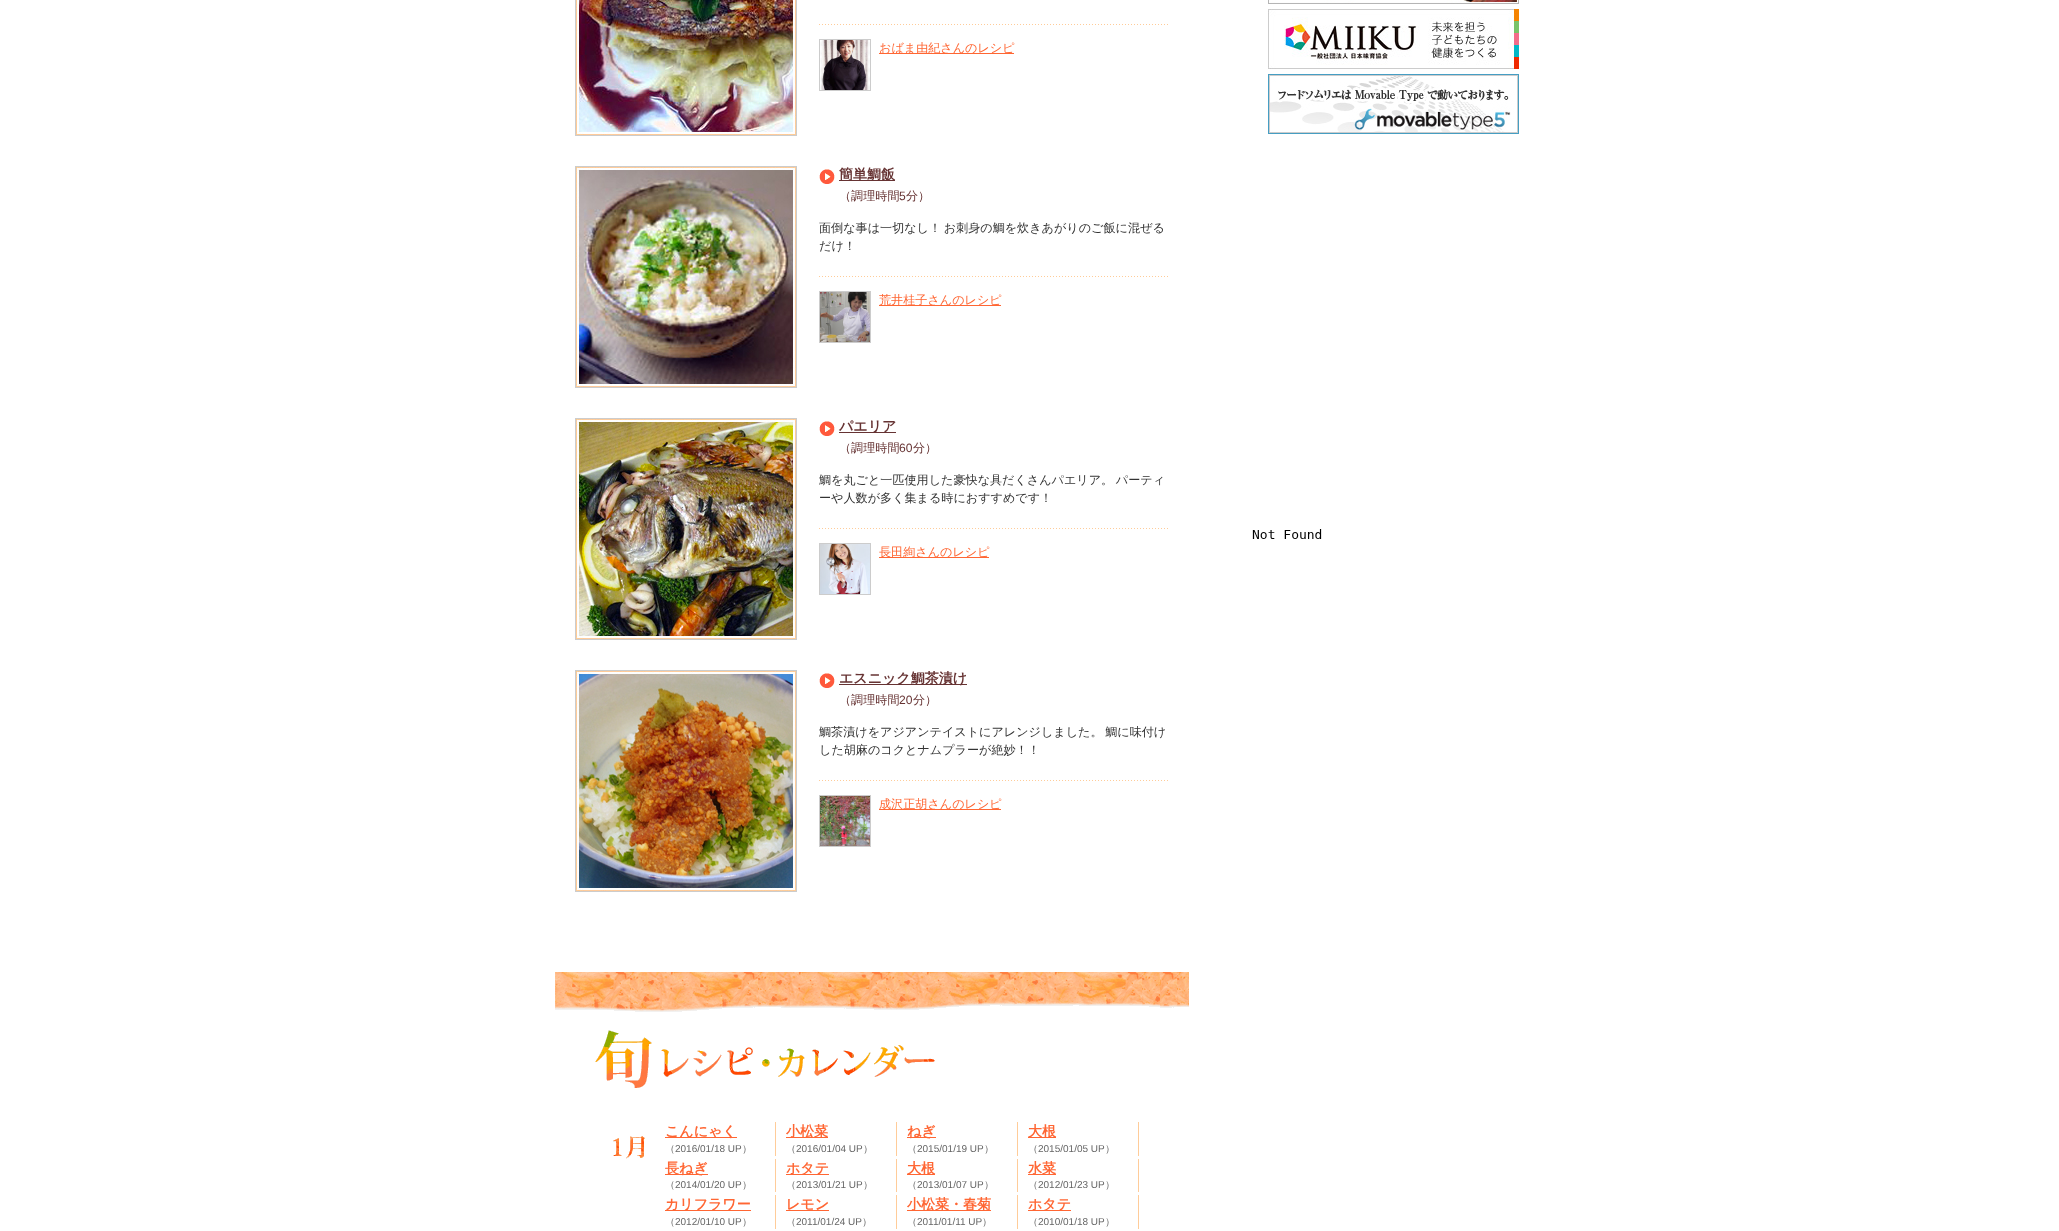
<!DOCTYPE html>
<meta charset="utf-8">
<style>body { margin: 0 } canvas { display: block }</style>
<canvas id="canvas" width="2059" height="1231"></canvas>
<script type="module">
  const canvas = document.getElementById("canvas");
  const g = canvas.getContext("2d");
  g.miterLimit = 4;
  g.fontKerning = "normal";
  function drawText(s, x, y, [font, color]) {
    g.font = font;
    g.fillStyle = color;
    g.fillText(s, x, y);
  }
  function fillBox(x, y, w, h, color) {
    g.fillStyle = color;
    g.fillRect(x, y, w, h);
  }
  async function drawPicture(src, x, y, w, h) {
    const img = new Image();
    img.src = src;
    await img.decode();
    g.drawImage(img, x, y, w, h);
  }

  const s1 = ["500 12.1px WenQuanYi Zen Hei", "#FF6633"];
  const s2 = ["bold 14px WenQuanYi Zen Hei", "#663333"];
  const s3 = ["500 12.1px WenQuanYi Zen Hei", "#663333"];
  const s4 = ["12.1px Liberation Sans", "#663333"];
  const s5 = ["500 12.1px WenQuanYi Zen Hei", "#333333"];
  const s6 = ["bold 14px WenQuanYi Zen Hei", "#FF6633"];
  const s7 = ["500 10px WenQuanYi Zen Hei", "#666666"];
  const s8 = ["10px Liberation Sans", "#666666"];

  fillBox(0, 0, 2059, 1231, "#FFFFFF");
  g.strokeStyle = "#CCCCCC";
  g.strokeRect(575.5, -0.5, 221, 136);
  await drawPicture("pic2.png", 579, 0, 214, 132);
  await drawPicture("pic1.png", 576, 0, 220, 135);
  await drawPicture("pic3.png", 819, 24, 349, 1);
  g.strokeRect(819.5, 39.5, 51, 51);
  await drawPicture("pic4.png", 820, 40, 50, 50);
  fillBox(879, 53, 135, 1, "#FF6633");
  drawText("おばま由紀さんのレシピ", 879, 52, s1);
  g.strokeRect(575.5, 166.5, 221, 221);
  await drawPicture("pic6.png", 579, 170, 214, 214);
  await drawPicture("pic5.png", 576, 167, 220, 220);
  await drawPicture("pic7.png", 819, 169, 16, 15);
  fillBox(839, 180, 56, 1, "#663333");
  drawText("簡単鯛飯", 839, 179, s2);
  drawText("（調理時間", 839, 200, s3);
  drawText("5", 899, 200, s4);
  drawText("分）", 906, 200, s3);
  g.wordSpacing = "-1px";
  drawText("面倒な事は一切なし！ お刺身の鯛を炊きあがりのご飯に混ぜる", 819, 232, s5);
  g.wordSpacing = "0px";
  drawText("だけ！", 819, 250, s5);
  await drawPicture("pic3.png", 819, 276, 349, 1);
  g.strokeRect(819.5, 291.5, 51, 51);
  await drawPicture("pic8.png", 820, 292, 50, 50);
  fillBox(879, 305, 122, 1, "#FF6633");
  drawText("荒井桂子さんのレシピ", 879, 304, s1);
  g.strokeRect(575.5, 418.5, 221, 221);
  await drawPicture("pic10.png", 579, 422, 214, 214);
  await drawPicture("pic9.png", 576, 419, 220, 220);
  await drawPicture("pic7.png", 819, 421, 16, 15);
  fillBox(839, 432, 57, 1, "#663333");
  drawText("パエリア", 839, 431, s2);
  drawText("（調理時間", 839, 452, s3);
  drawText("60", 899, 452, s4);
  drawText("分）", 913, 452, s3);
  g.wordSpacing = "-1px";
  drawText("鯛を丸ごと一匹使用した豪快な具だくさんパエリア。 パーティ", 819, 484, s5);
  g.wordSpacing = "0px";
  drawText("ーや人数が多く集まる時におすすめです！", 819, 502, s5);
  await drawPicture("pic3.png", 819, 528, 349, 1);
  g.strokeRect(819.5, 543.5, 51, 51);
  await drawPicture("pic11.png", 820, 544, 50, 50);
  fillBox(879, 557, 110, 1, "#FF6633");
  drawText("長田絢さんのレシピ", 879, 556, s1);
  g.strokeRect(575.5, 670.5, 221, 221);
  await drawPicture("pic13.png", 579, 674, 214, 214);
  await drawPicture("pic12.png", 576, 671, 220, 220);
  await drawPicture("pic7.png", 819, 673, 16, 15);
  fillBox(839, 684, 128, 1, "#663333");
  drawText("エスニック鯛茶漬け", 839, 683, s2);
  drawText("（調理時間", 839, 704, s3);
  drawText("20", 899, 704, s4);
  drawText("分）", 913, 704, s3);
  g.wordSpacing = "-1px";
  drawText("鯛茶漬けをアジアンテイストにアレンジしました。 鯛に味付け", 819, 736, s5);
  g.wordSpacing = "0px";
  drawText("した胡麻のコクとナムプラーが絶妙！！", 819, 754, s5);
  await drawPicture("pic3.png", 819, 780, 349, 1);
  g.strokeRect(819.5, 795.5, 51, 51);
  await drawPicture("pic14.png", 820, 796, 50, 50);
  fillBox(879, 809, 122, 1, "#FF6633");
  drawText("成沢正胡さんのレシピ", 879, 808, s1);
  await drawPicture("pic15.png", 555, 972, 634, 116);
  await drawPicture("pic16.png", 613, 1136, 32, 23);
  fillBox(775, 1122, 1, 34, "#FFCC99");
  fillBox(665, 1137, 72, 1, "#FF6633");
  drawText("こんにゃく", 665, 1136, s6);
  drawText("（", 665, 1152, s7);
  drawText("2016/01/18 UP", 675, 1152, s8);
  drawText("）", 742, 1152, s7);
  fillBox(896, 1122, 1, 34, "#FFCC99");
  fillBox(786, 1137, 42, 1, "#FF6633");
  drawText("小松菜", 786, 1136, s6);
  drawText("（", 786, 1152, s7);
  drawText("2016/01/04 UP", 796, 1152, s8);
  drawText("）", 863, 1152, s7);
  fillBox(1017, 1122, 1, 34, "#FFCC99");
  fillBox(907, 1137, 29, 1, "#FF6633");
  drawText("ねぎ", 907, 1136, s6);
  drawText("（", 907, 1152, s7);
  drawText("2015/01/19 UP", 917, 1152, s8);
  drawText("）", 984, 1152, s7);
  fillBox(1138, 1122, 1, 34, "#FFCC99");
  fillBox(1028, 1137, 28, 1, "#FF6633");
  drawText("大根", 1028, 1136, s6);
  drawText("（", 1028, 1152, s7);
  drawText("2015/01/05 UP", 1038, 1152, s8);
  drawText("）", 1105, 1152, s7);
  fillBox(775, 1159, 1, 33, "#FFCC99");
  fillBox(665, 1174, 43, 1, "#FF6633");
  drawText("長ねぎ", 665, 1173, s6);
  drawText("（", 665, 1188, s7);
  drawText("2014/01/20 UP", 675, 1188, s8);
  drawText("）", 742, 1188, s7);
  fillBox(896, 1159, 1, 33, "#FFCC99");
  fillBox(786, 1174, 43, 1, "#FF6633");
  drawText("ホタテ", 786, 1173, s6);
  drawText("（", 786, 1188, s7);
  drawText("2013/01/21 UP", 796, 1188, s8);
  drawText("）", 863, 1188, s7);
  fillBox(1017, 1159, 1, 33, "#FFCC99");
  fillBox(907, 1174, 28, 1, "#FF6633");
  drawText("大根", 907, 1173, s6);
  drawText("（", 907, 1188, s7);
  drawText("2013/01/07 UP", 917, 1188, s8);
  drawText("）", 984, 1188, s7);
  fillBox(1138, 1159, 1, 33, "#FFCC99");
  fillBox(1028, 1174, 28, 1, "#FF6633");
  drawText("水菜", 1028, 1173, s6);
  drawText("（", 1028, 1188, s7);
  drawText("2012/01/23 UP", 1038, 1188, s8);
  drawText("）", 1105, 1188, s7);
  fillBox(775, 1195, 1, 34, "#FFCC99");
  fillBox(665, 1210, 86, 1, "#FF6633");
  drawText("カリフラワー", 665, 1209, s6);
  drawText("（", 665, 1225, s7);
  drawText("2012/01/10 UP", 675, 1225, s8);
  drawText("）", 742, 1225, s7);
  fillBox(896, 1195, 1, 34, "#FFCC99");
  drawText("レモン", 786, 1209, s6);
  fillBox(786, 1210, 43, 1, "#FF6633");
  drawText("（", 786, 1225, s7);
  drawText("2011/01/24 UP", 796, 1225, s8);
  drawText("）", 862, 1225, s7);
  fillBox(1017, 1195, 1, 34, "#FFCC99");
  fillBox(907, 1210, 84, 1, "#FF6633");
  drawText("小松菜・春菊", 907, 1209, s6);
  drawText("（", 907, 1225, s7);
  drawText("2011/01/11 UP", 917, 1225, s8);
  drawText("）", 982, 1225, s7);
  fillBox(1138, 1195, 1, 34, "#FFCC99");
  fillBox(1028, 1210, 43, 1, "#FF6633");
  drawText("ホタテ", 1028, 1209, s6);
  drawText("（", 1028, 1225, s7);
  drawText("2010/01/18 UP", 1038, 1225, s8);
  drawText("）", 1105, 1225, s7);
  await drawPicture("pic17.png", 1268, 0, 251, 4);
  await drawPicture("pic18.png", 1268, 9, 251, 60);
  await drawPicture("pic19.png", 1268, 74, 251, 60);
  await drawPicture("pic20.png", 1252, 529, 70, 10);
</script>
